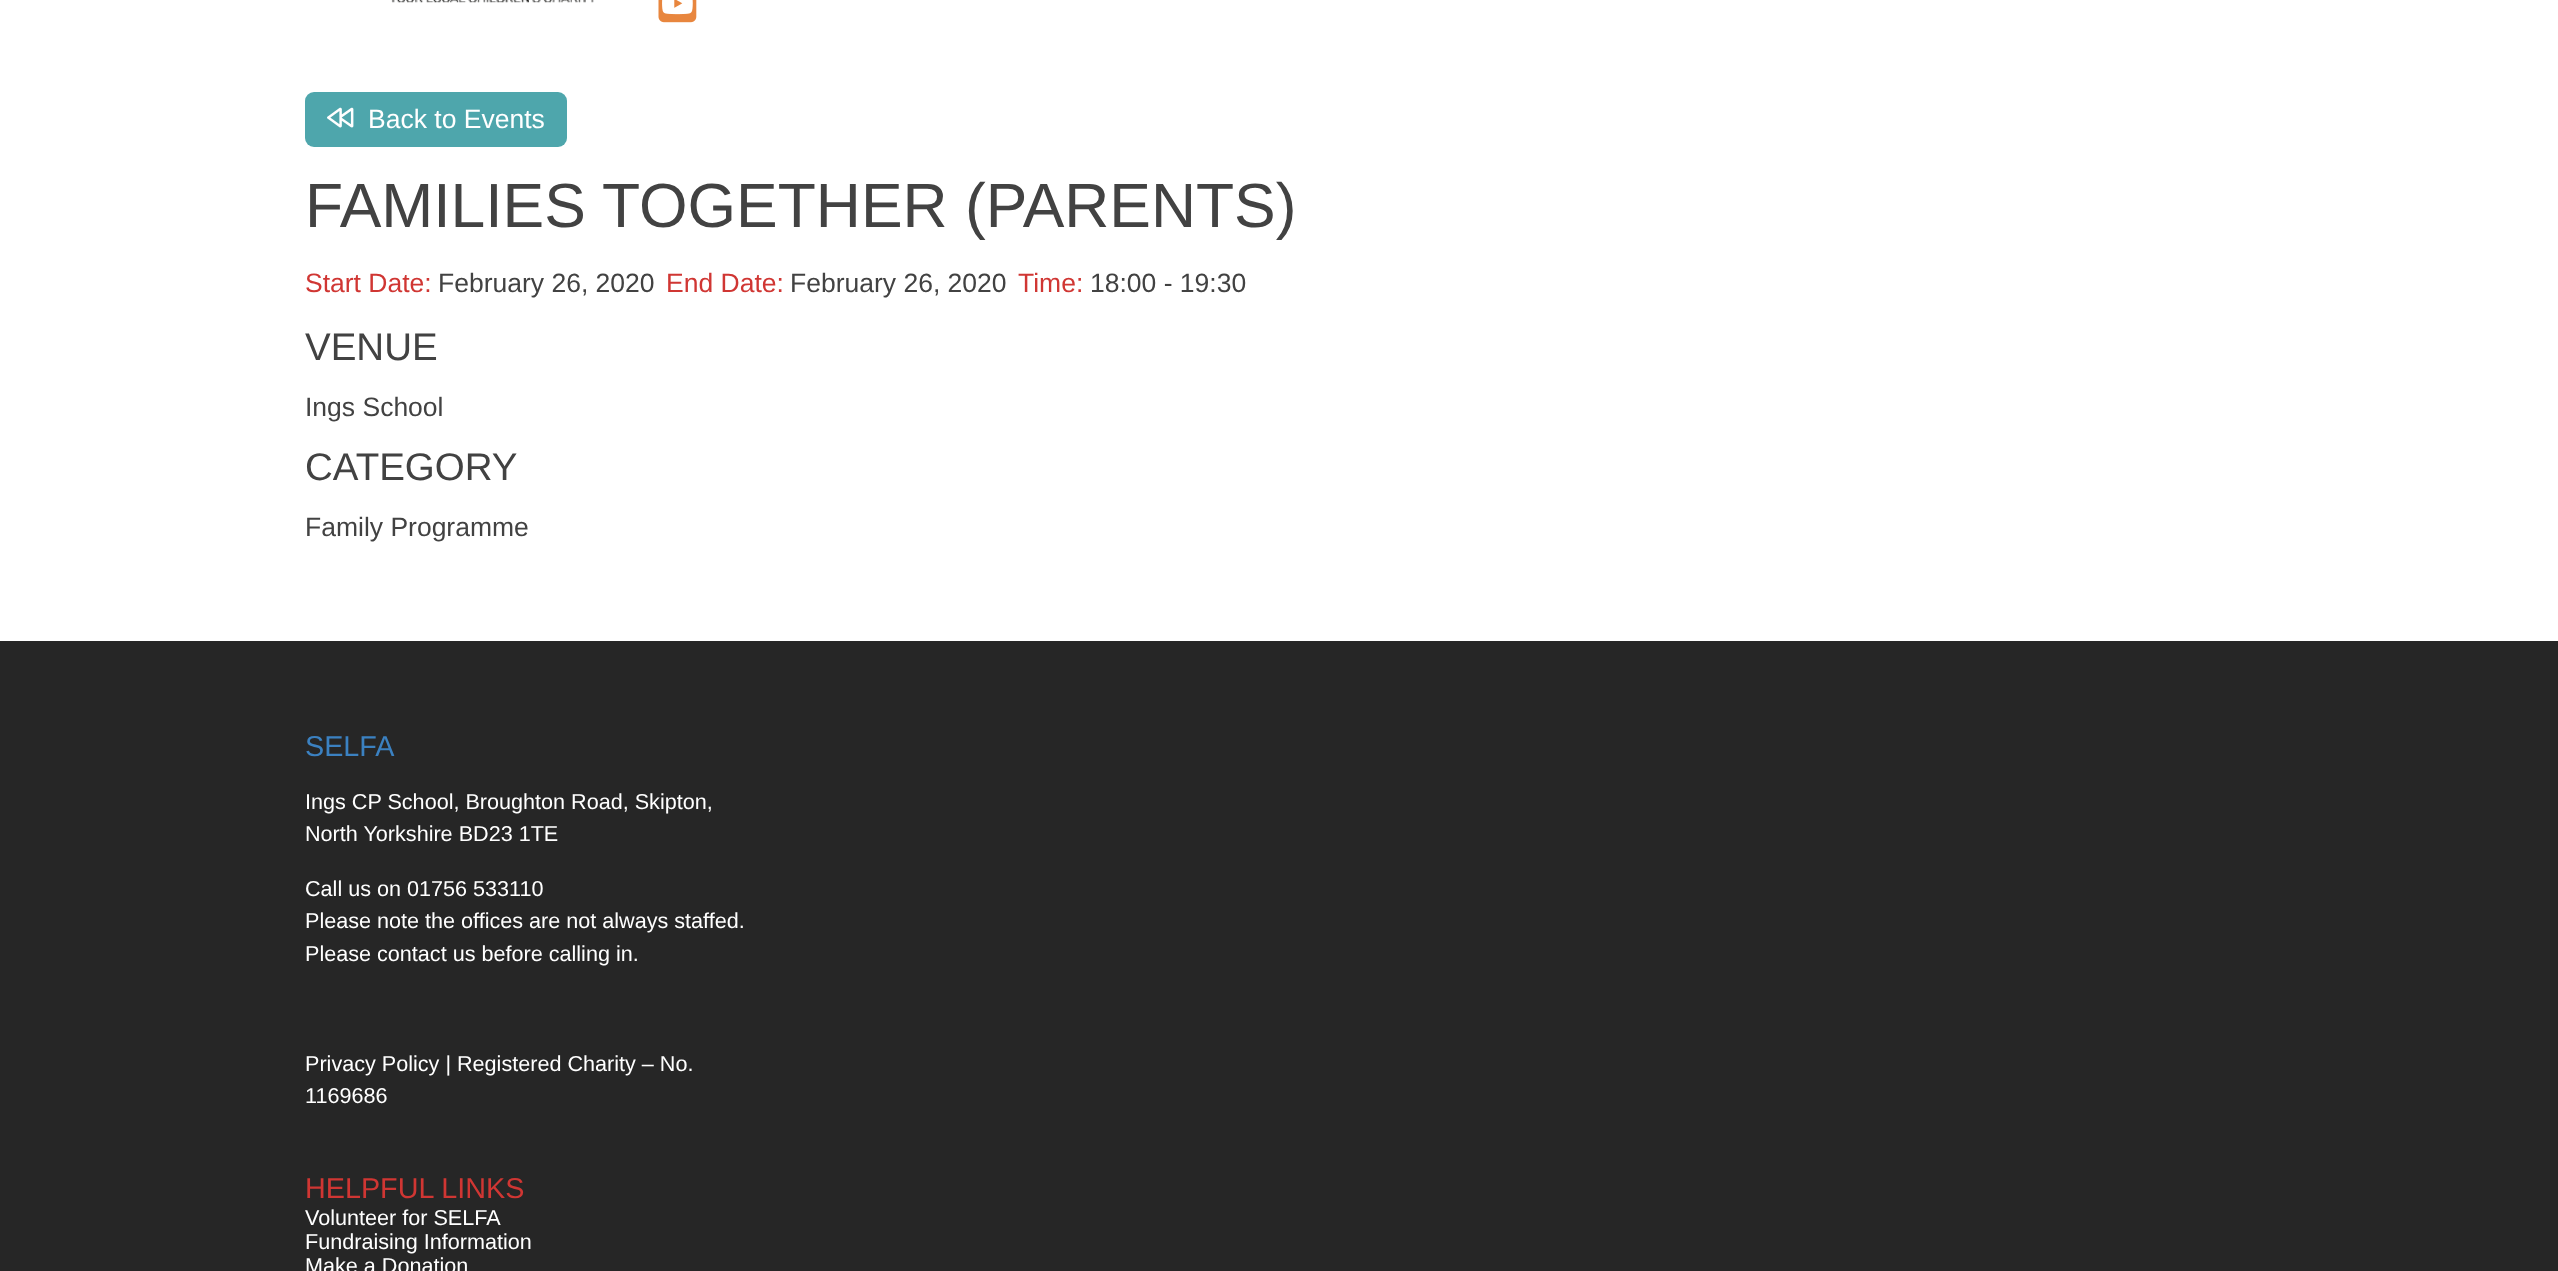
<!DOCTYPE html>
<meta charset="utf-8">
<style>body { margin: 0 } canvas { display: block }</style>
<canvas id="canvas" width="2558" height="1271"></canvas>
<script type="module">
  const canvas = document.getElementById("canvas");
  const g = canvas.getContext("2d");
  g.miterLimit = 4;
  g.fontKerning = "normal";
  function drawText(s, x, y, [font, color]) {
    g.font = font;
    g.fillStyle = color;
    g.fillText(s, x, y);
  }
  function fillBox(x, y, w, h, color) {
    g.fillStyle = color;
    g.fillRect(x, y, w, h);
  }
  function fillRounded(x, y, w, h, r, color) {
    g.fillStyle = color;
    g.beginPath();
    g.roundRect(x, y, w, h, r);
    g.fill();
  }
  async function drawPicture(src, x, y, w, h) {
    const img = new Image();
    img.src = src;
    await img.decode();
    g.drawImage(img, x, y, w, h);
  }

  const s1 = ["26.5px Liberation Sans", "#FFFFFF"];
  const s2 = ["62.4px Liberation Sans", "#424242"];
  const s3 = ["26.5px Liberation Sans", "#D03633"];
  const s4 = ["26.5px Liberation Sans", "#424242"];
  const s5 = ["38.5px Liberation Sans", "#424242"];
  const s6 = ["28.75px Liberation Sans", "#3B81C1"];
  const s7 = ["21.6px Liberation Sans", "#FFFFFF"];
  const s8 = ["28.75px Liberation Sans", "#D03633"];

  fillBox(0, 0, 2558, 1271, "#FFFFFF");
  await drawPicture("pic1.png", 391, 0, 203, 3);
  await drawPicture("pic2.png", 658, 0, 39, 23);
  fillRounded(305, 92, 262, 55, 9, "#4EA6AC");
  await drawPicture("pic3.png", 327, 107, 27, 21);
  drawText("Back to Events", 368, 128, s1);
  drawText("FAMILIES TOGETHER (PARENTS)", 305, 227, s2);
  drawText("Start Date:", 305, 292, s3);
  drawText("February 26, 2020", 438, 292, s4);
  drawText("End Date:", 666, 292, s3);
  drawText("February 26, 2020", 790, 292, s4);
  drawText("Time:", 1018, 292, s3);
  drawText("18:00 - 19:30", 1090, 292, s4);
  drawText("VENUE", 305, 360, s5);
  drawText("Ings School", 305, 416, s4);
  drawText("CATEGORY", 305, 480, s5);
  drawText("Family Programme", 305, 536, s4);
  fillBox(0, 641, 2558, 630, "#262626");
  drawText("SELFA", 305, 756, s6);
  drawText("Ings CP School, Broughton Road, Skipton,", 305, 809, s7);
  drawText("North Yorkshire BD23 1TE", 305, 841, s7);
  drawText("Call us on 01756 533110", 305, 896, s7);
  drawText("Please note the offices are not always staffed.", 305, 928, s7);
  drawText("Please contact us before calling in.", 305, 961, s7);
  drawText("Privacy Policy | Registered Charity – No.", 305, 1071, s7);
  drawText("1169686", 305, 1103, s7);
  drawText("HELPFUL LINKS", 305, 1198, s8);
  drawText("Volunteer for SELFA", 305, 1225, s7);
  drawText("Fundraising Information", 305, 1249, s7);
  drawText("Make a Donation", 305, 1273, s7);
</script>
